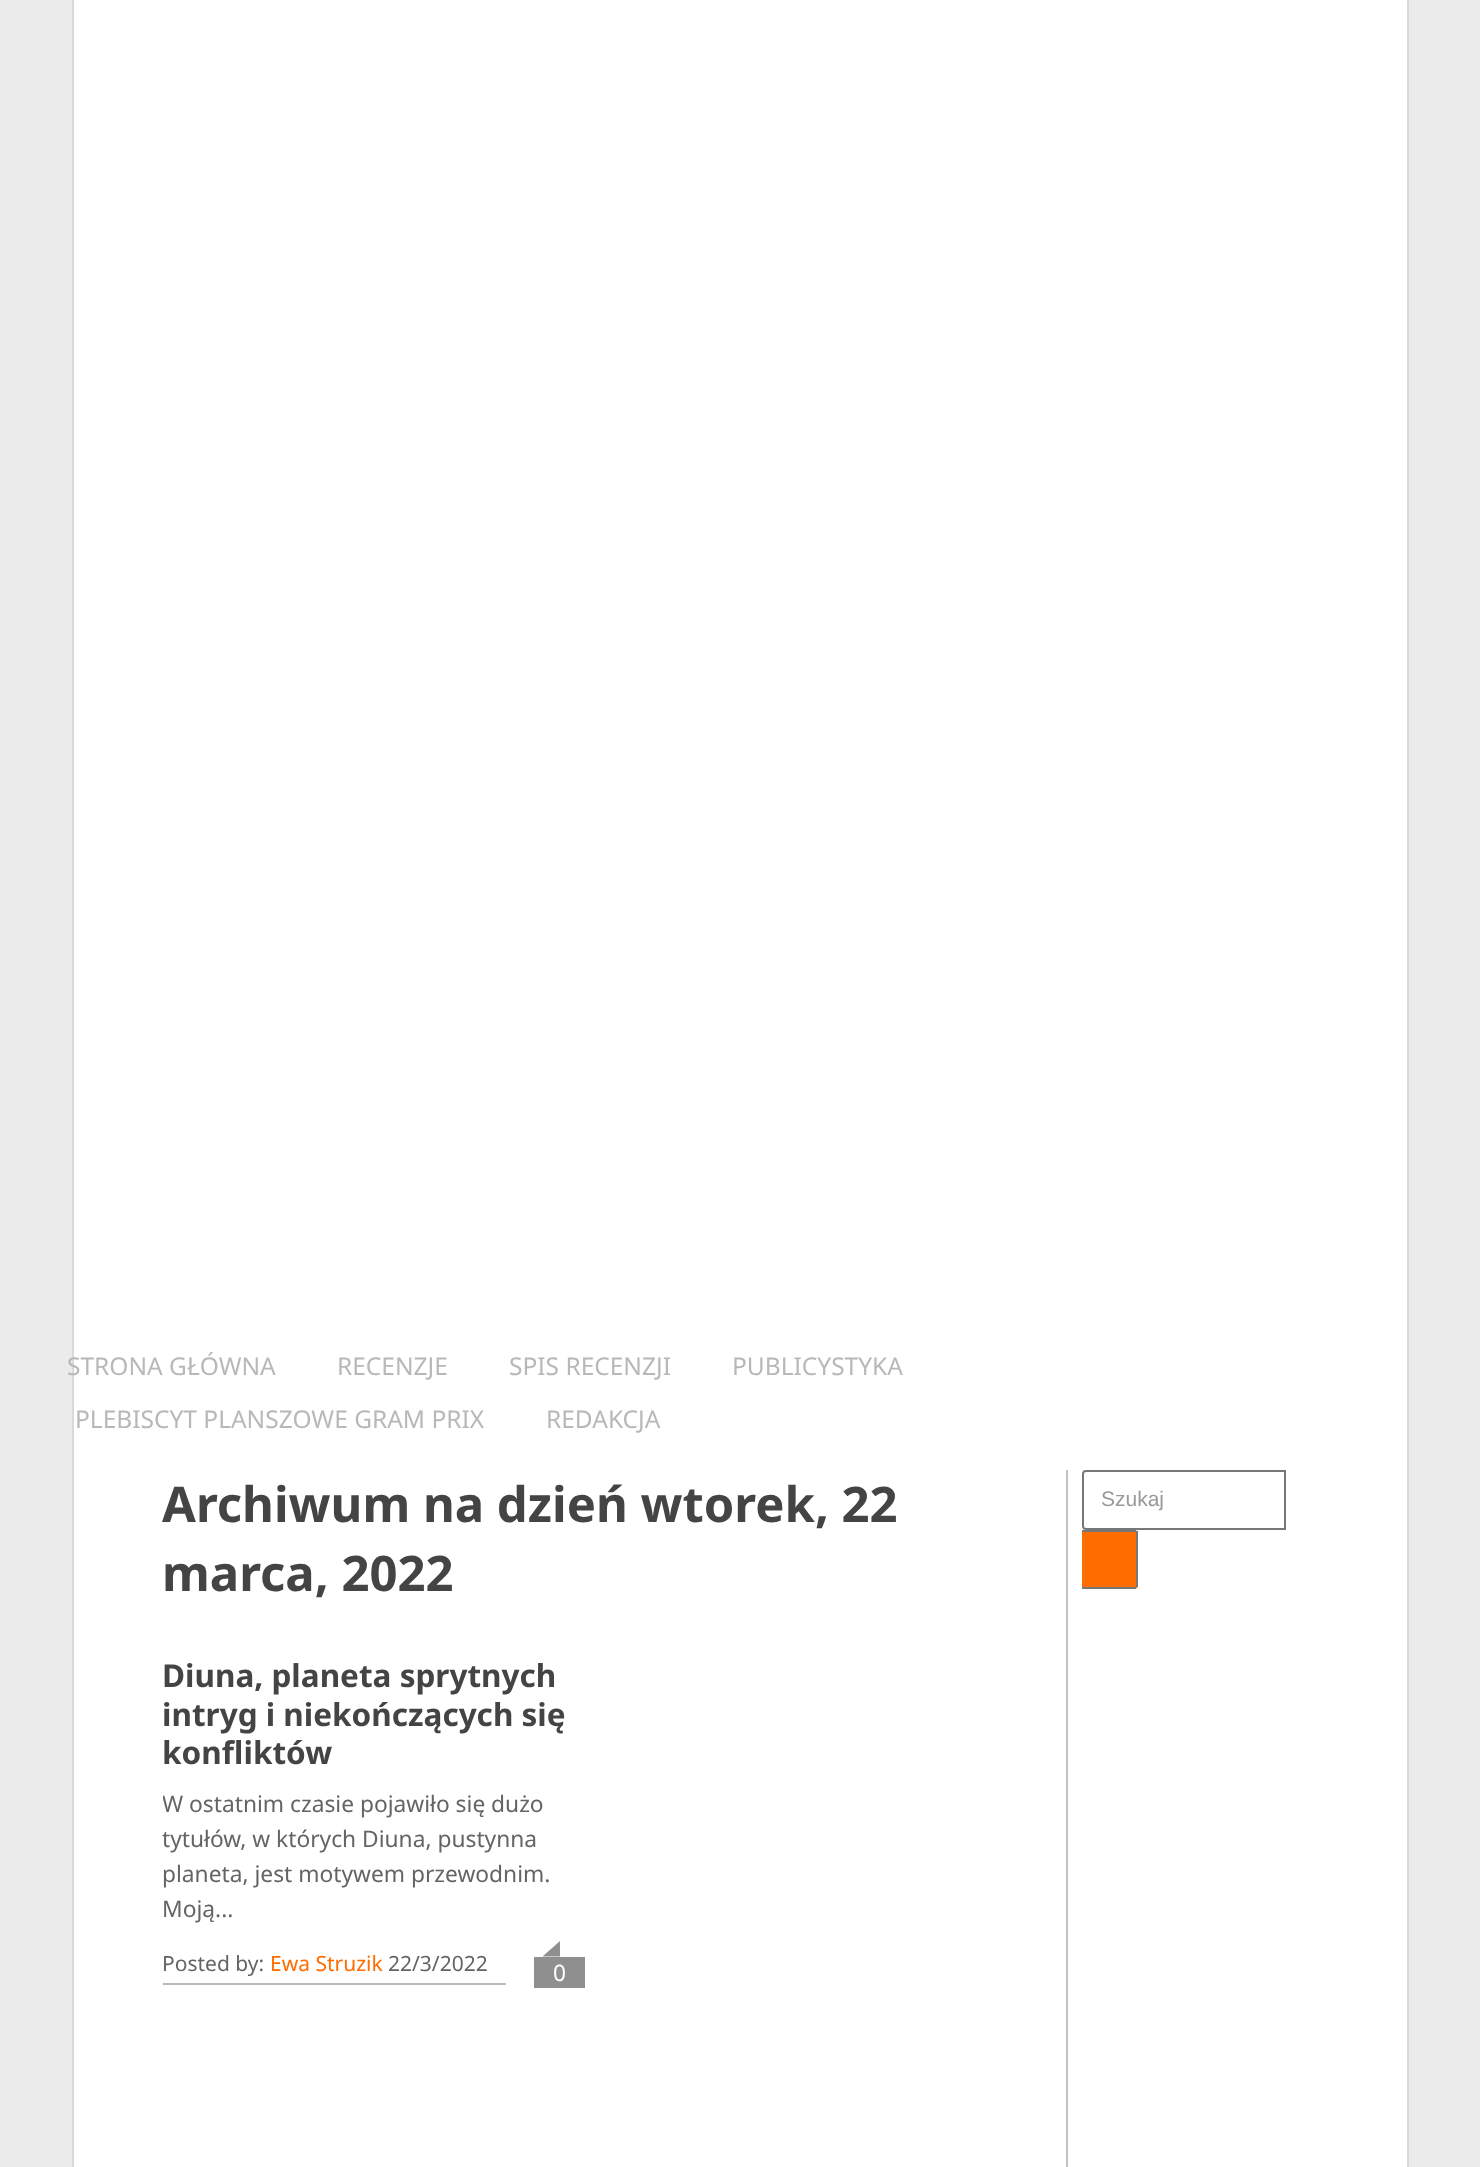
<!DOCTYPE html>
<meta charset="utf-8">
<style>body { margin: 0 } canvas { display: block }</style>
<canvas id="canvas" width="1480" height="2167"></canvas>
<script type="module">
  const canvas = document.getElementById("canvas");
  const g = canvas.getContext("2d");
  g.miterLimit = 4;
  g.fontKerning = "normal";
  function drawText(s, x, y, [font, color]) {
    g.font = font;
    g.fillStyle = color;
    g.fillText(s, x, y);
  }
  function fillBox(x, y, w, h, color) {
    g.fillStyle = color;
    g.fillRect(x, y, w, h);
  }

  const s1 = ["24.5px Noto Sans", "#B8B8B8"];
  const s2 = ["bold 49px Noto Sans", "#444444"];
  const s3 = ["bold 31.5px Noto Sans", "#444444"];
  const s4 = ["22.75px Noto Sans", "#646464"];
  const s5 = ["21px Noto Sans", "#646464"];
  const s6 = ["21px Noto Sans", "#FF6C00"];
  const s7 = ["22.75px Noto Sans", "#FFFFFF"];
  const s8 = ["21px Liberation Sans", "#999999"];

  fillBox(0, 0, 1480, 2167, "#EBEBEB");
  fillBox(74, 0, 1333, 2167, "#FFFFFF");
  fillBox(72, 0, 2, 2167, "#D9D9D9");
  drawText("STRONA GŁÓWNA", 67, 1375, s1);
  drawText("RECENZJE", 337, 1375, s1);
  drawText("SPIS RECENZJI", 509, 1375, s1);
  drawText("PUBLICYSTYKA", 732, 1375, s1);
  drawText("PLEBISCYT PLANSZOWE GRAM PRIX", 75, 1428, s1);
  drawText("REDAKCJA", 546, 1428, s1);
  fillBox(1407, 0, 2, 2167, "#D9D9D9");
  fillBox(1066, 1470, 2, 697, "#C2C2C2");
  drawText("Archiwum na dzień wtorek, 22", 162, 1522, s2);
  drawText("marca, 2022", 162, 1591, s2);
  drawText("Diuna, planeta sprytnych", 162, 1687, s3);
  drawText("intryg i niekończących się", 162, 1726, s3);
  drawText("konfliktów", 162, 1764, s3);
  g.save();
  g.beginPath();
  g.rect(163, 1650, 422, 508);
  g.clip();
  drawText("W ostatnim czasie pojawiło się dużo", 162, 1812, s4);
  g.restore();
  drawText("tytułów, w których Diuna, pustynna", 162, 1847, s4);
  drawText("planeta, jest motywem przewodnim.", 162, 1882, s4);
  drawText("Moją...", 162, 1917, s4);
  fillBox(163, 1983, 343, 2, "#B9B9B9");
  drawText("Posted by:", 162, 1971, s5);
  drawText("Ewa Struzik", 270, 1971, s6);
  drawText("22/3/2022", 388, 1971, s5);
  fillBox(534, 1957, 51, 31, "#8F8F8F");
  g.beginPath();
  g.moveTo(560, 1956.5);
  g.lineTo(542.5, 1956.5);
  g.lineTo(560, 1941);
  g.closePath();
  g.fill();
  drawText("0", 553, 1981, s7);
  g.beginPath();
  g.roundRect(1083, 1471, 202, 58, [3, 0, 0, 3]);
  g.strokeStyle = "#777777";
  g.lineWidth = 2;
  g.stroke();
  drawText("Szukaj", 1101, 1506, s8);
  g.fillStyle = "#FF6C00";
  g.beginPath();
  g.roundRect(1082, 1530, 56, 59, [0, 4, 4, 0]);
  g.fill();
  fillBox(1082, 1530, 54, 2, "#777777");
  fillBox(1136, 1531, 2, 56, "#777777");
  fillBox(1082, 1587, 54, 2, "#777777");
</script>
